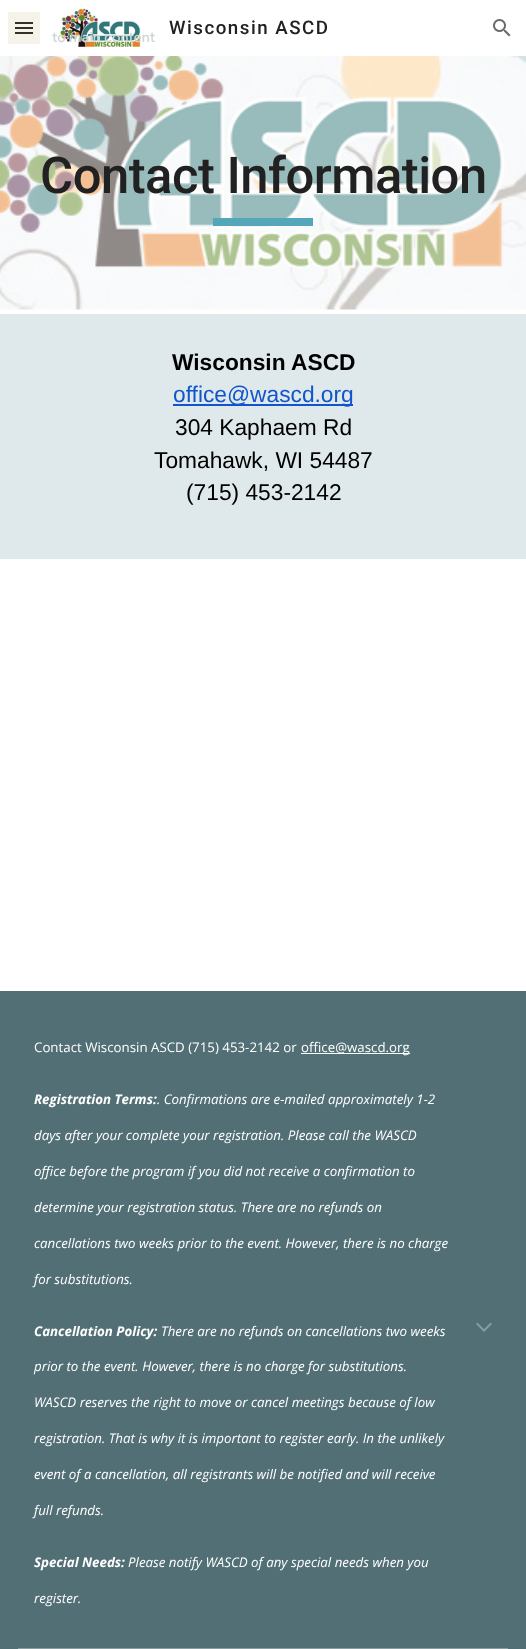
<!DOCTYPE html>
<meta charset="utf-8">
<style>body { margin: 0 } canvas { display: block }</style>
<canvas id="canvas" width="526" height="1649"></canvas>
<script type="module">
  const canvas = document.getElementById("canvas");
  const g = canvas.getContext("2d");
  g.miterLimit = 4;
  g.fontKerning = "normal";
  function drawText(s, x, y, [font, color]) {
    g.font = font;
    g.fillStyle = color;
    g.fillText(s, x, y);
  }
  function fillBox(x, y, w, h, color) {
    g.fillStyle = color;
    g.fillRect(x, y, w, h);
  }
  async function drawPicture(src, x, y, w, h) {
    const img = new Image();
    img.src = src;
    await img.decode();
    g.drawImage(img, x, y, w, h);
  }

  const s1 = ["500 18.75px Roboto", "#212121"];
  const s2 = ["500 50.75px Roboto", "#212121"];
  const s3 = ["bold 22.75px Liberation Sans", "#000000"];
  const s4 = ["22.75px Liberation Sans", "#1155CC"];
  const s5 = ["22.75px Liberation Sans", "#000000"];
  const s6 = ["13.3px Open Sans", "#FFFFFF"];
  const s7 = ["italic bold 13.3px Open Sans", "#FFFFFF"];
  const s8 = ["italic 13.3px Open Sans", "#FFFFFF"];
  const s9 = ["500 14px Google Sans", "#CED8D3"];

  fillBox(0, 0, 526, 1649, "#FFFFFF");
  fillBox(15, 22, 18, 2, "#212121");
  fillBox(15, 27, 18, 2, "#212121");
  fillBox(15, 32, 18, 2, "#212121");
  fillBox(8, 12, 32, 32, "rgba(183, 153, 81, 0.12)");
  await drawPicture("pic1.png", 60, 8, 81, 39);
  g.letterSpacing = "1.5px";
  drawText("Wisconsin ASCD", 169, 34, s1);
  await drawPicture("pic2.png", 493, 19, 18, 18);
  await drawPicture("pic3.png", 0, 56, 526, 254);
  g.letterSpacing = "-0.5px";
  drawText("Contact Information", 40, 193, s2);
  fillBox(213, 218, 100, 8, "#53A7B8");
  fillBox(0, 314, 526, 245, "#DFE9EB");
  g.letterSpacing = "0px";
  drawText("Wisconsin ASCD", 172, 370, s3);
  fillBox(173, 404, 180, 2, "#1155CC");
  drawText("office@wascd.org", 173, 402, s4);
  drawText("304 Kaphaem Rd", 175, 435, s5);
  drawText("Tomahawk, WI 54487", 154, 468, s5);
  drawText("(715) 453-2142", 186, 500, s5);
  fillBox(0, 991, 526, 658, "#516F75");
  fillBox(18, 1648, 490, 1, "#899DA1");
  drawText("Contact Wisconsin ASCD (715) 453-2142 or", 34, 1052, s6);
  fillBox(301, 1053, 109, 1, "#FFFFFF");
  drawText("office@wascd.org", 301, 1052, s6);
  drawText("Registration Terms:", 34, 1104, s7);
  drawText(". Confirmations are e-mailed approximately 1-2", 157, 1104, s8);
  drawText("days after your complete your registration. Please call the WASCD", 34, 1140, s8);
  drawText("office before the program if you did not receive a confirmation to", 34, 1176, s8);
  drawText("determine your registration status. There are no refunds on", 34, 1212, s8);
  drawText("cancellations two weeks prior to the event. However, there is no charge", 34, 1248, s8);
  drawText("for substitutions.", 34, 1284, s8);
  drawText("Cancellation Policy:", 34, 1336, s7);
  drawText("There are no refunds on cancellations two weeks", 161, 1336, s8);
  drawText("prior to the event. However, there is no charge for substitutions.", 34, 1371, s8);
  drawText("WASCD reserves the right to move or cancel meetings because of low", 34, 1407, s8);
  drawText("registration. That is why it is important to register early. In the unlikely", 34, 1443, s8);
  drawText("event of a cancellation, all registrants will be notified and will receive", 34, 1479, s8);
  drawText("full refunds.", 34, 1515, s8);
  drawText("Special Needs:", 34, 1567, s7);
  drawText("Please notify WASCD of any special needs when you", 128, 1567, s8);
  drawText("register.", 34, 1603, s8);
  await drawPicture("pic4.png", 476, 1322, 16, 10);
  g.letterSpacing = "0.1px";
  drawText("to main content", 52, 42, s9);
</script>
